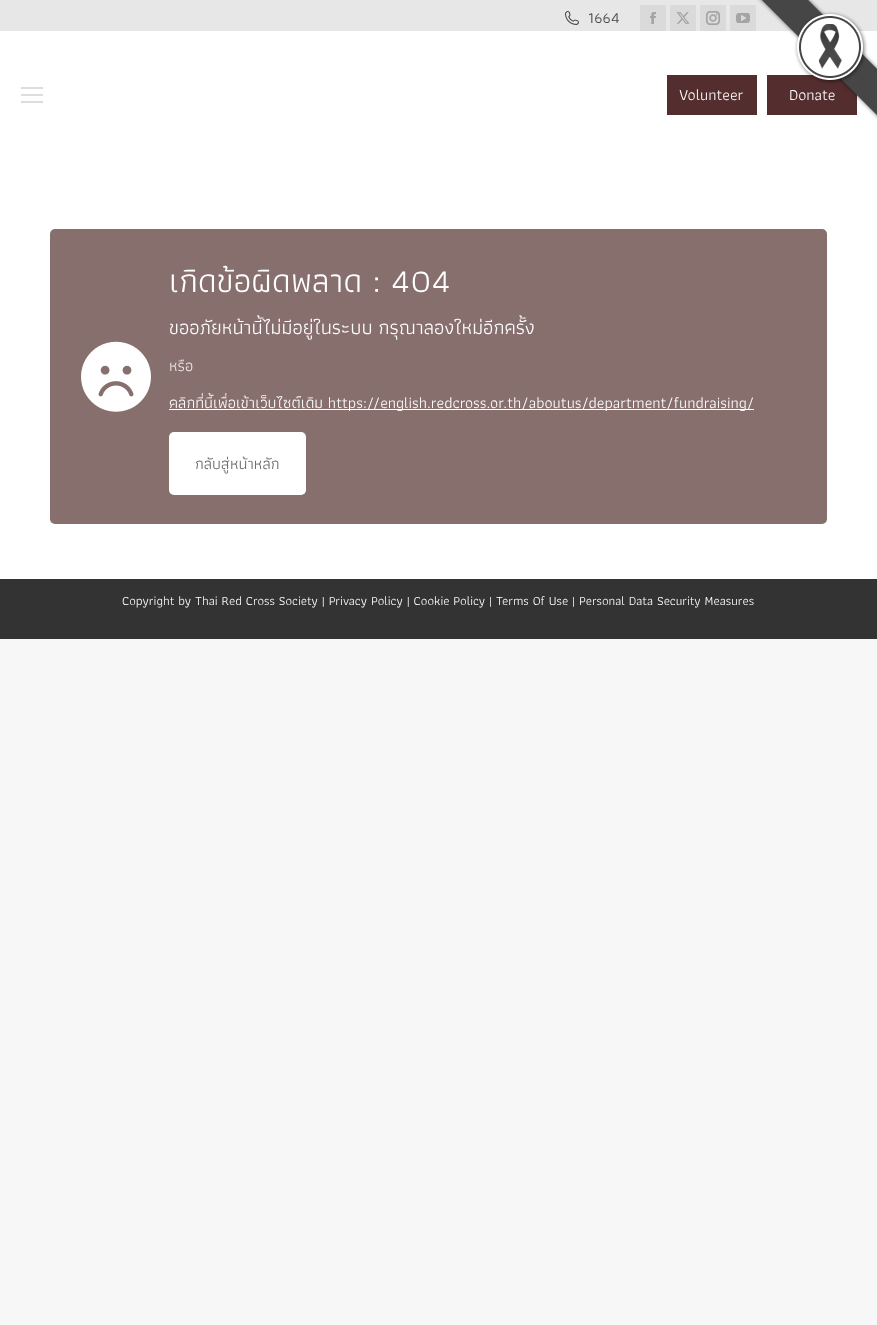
<!DOCTYPE html>
<meta charset="utf-8">
<style>body { margin: 0 } canvas { display: block }</style>
<canvas id="canvas" width="877" height="1325"></canvas>
<script type="module">
  const canvas = document.getElementById("canvas");
  const g = canvas.getContext("2d");
  g.miterLimit = 4;
  g.fontKerning = "normal";
  function drawText(s, x, y, [font, color]) {
    g.font = font;
    g.fillStyle = color;
    g.fillText(s, x, y);
  }
  function fillBox(x, y, w, h, color) {
    g.fillStyle = color;
    g.fillRect(x, y, w, h);
  }
  function fillRounded(x, y, w, h, r, color) {
    g.fillStyle = color;
    g.beginPath();
    g.roundRect(x, y, w, h, r);
    g.fill();
  }
  async function drawPicture(src, x, y, w, h) {
    const img = new Image();
    img.src = src;
    await img.decode();
    g.drawImage(img, x, y, w, h);
  }

  const s1 = ["16px Athiti", "#FFFFFF"];
  const s2 = ["16px Athiti", "#444444"];
  const s3 = ["34px Athiti", "#FFFFFF"];
  const s4 = ["20px Athiti", "#FFFFFF"];
  const s5 = ["16px Athiti", "#EBE7E6"];
  const s6 = ["16px Athiti", "#666666"];
  const s7 = ["13px Athiti", "#FFFFFF"];

  fillBox(0, 0, 877, 1325, "#F7F7F7");
  fillBox(0, 31, 877, 548, "#FFFFFF");
  fillBox(0, 0, 877, 31, "#E7E7E7");
  fillBox(767, 75, 90, 40, "#542E2E");
  drawText("Donate", 789, 100, s1);
  await drawPicture("pic1.png", 757, 0, 120, 120);
  await drawPicture("pic2.png", 565, 11, 14, 14);
  drawText("1664", 588, 23, s2);
  fillRounded(640, 5, 26, 26, 1, "#DADADA");
  await drawPicture("pic3.png", 650, 12, 6, 12);
  fillRounded(670, 5, 26, 26, 1, "#DADADA");
  await drawPicture("pic4.png", 676, 12, 14, 12);
  fillRounded(700, 5, 26, 26, 1, "#DADADA");
  await drawPicture("pic5.png", 706, 11, 14, 14);
  fillRounded(730, 5, 26, 26, 1, "#DADADA");
  await drawPicture("pic6.png", 736, 13, 14, 10);
  fillBox(21, 87, 22, 2, "#DDDDDD");
  fillBox(21, 94, 22, 2, "#DDDDDD");
  fillBox(21, 101, 22, 2, "#DDDDDD");
  fillBox(667, 75, 90, 40, "#542E2E");
  drawText("Volunteer", 679, 100, s1);
  fillRounded(50, 229, 777, 295, 5, "#876F6E");
  await drawPicture("pic7.png", 81, 341, 70, 71);
  drawText("เกิดข้อผิดพลาด : 404", 169, 292, s3);
  drawText("ขออภัยหน้านี้ไม่มีอยู่ในระบบ กรุณาลองใหม่อีกครั้ง", 169, 334, s4);
  drawText("หรือ", 169, 371, s5);
  fillBox(169, 409, 585, 1, "#FFFFFF");
  drawText("คลิกที่นี้เพื่อเข้าเว็บไซต์เดิม https://english.redcross.or.th/aboutus/department/fundraising/", 169, 408, s1);
  fillRounded(169, 432, 137, 63, 5, "#FFFFFF");
  drawText("กลับสู่หน้าหลัก", 195, 469, s6);
  fillBox(0, 579, 877, 60, "#323332");
  drawText("Copyright by Thai Red Cross Society | Privacy Policy | Cookie Policy | Terms Of Use | Personal Data Security Measures", 122, 605, s7);
</script>
